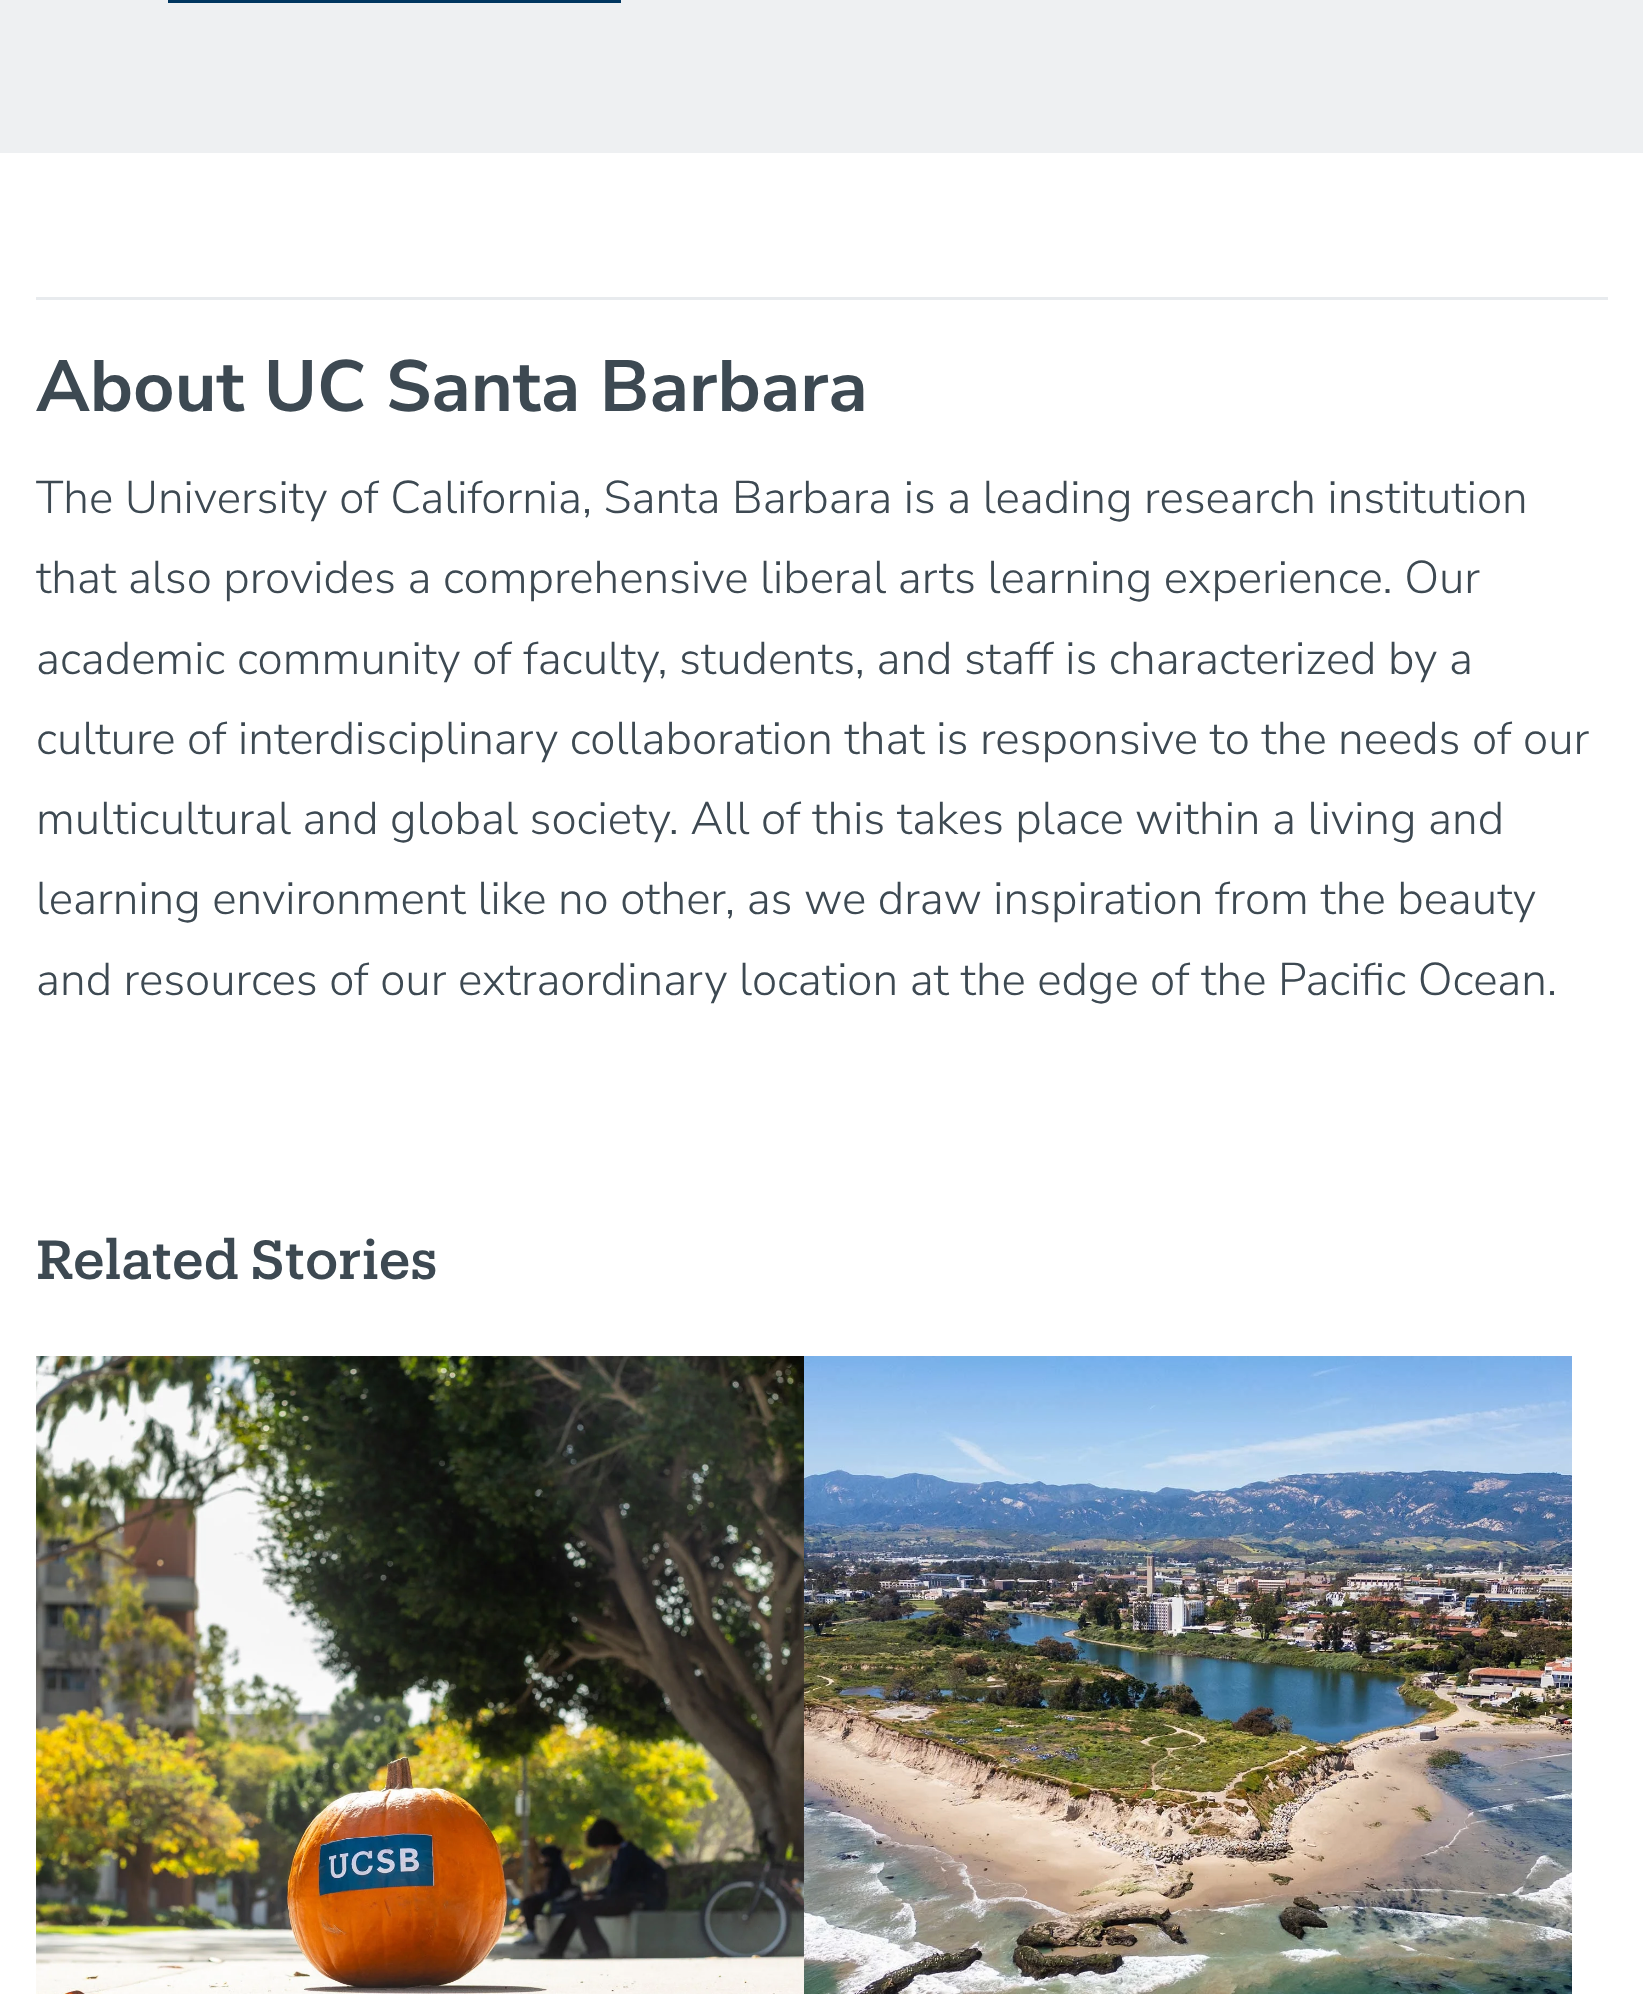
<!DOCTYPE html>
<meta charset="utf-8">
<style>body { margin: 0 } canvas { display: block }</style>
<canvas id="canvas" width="1643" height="1994"></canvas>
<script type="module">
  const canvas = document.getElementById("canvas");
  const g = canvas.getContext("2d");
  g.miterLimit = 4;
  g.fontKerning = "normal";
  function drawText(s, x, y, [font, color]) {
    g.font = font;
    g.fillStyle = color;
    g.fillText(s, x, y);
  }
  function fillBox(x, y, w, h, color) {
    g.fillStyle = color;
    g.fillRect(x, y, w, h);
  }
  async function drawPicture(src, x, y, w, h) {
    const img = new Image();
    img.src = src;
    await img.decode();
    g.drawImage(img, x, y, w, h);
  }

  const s1 = ["bold 72.25px Nunito Sans", "#3D4952"];
  const s2 = ["300 45.9px Nunito Sans", "#3D4952"];
  const s3 = ["500 54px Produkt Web", "#3D4952"];

  fillBox(0, 0, 1643, 1994, "#FFFFFF");
  fillBox(0, 0, 1643, 153, "#EEF0F2");
  fillBox(168, 0, 453, 3, "#003660");
  fillBox(36, 297, 1572, 3, "#E8EBEE");
  drawText("About UC Santa Barbara", 36, 411, s1);
  drawText("The University of California, Santa Barbara is a leading research institution", 36, 513, s2);
  drawText("that also provides a comprehensive liberal arts learning experience. Our", 36, 593, s2);
  drawText("academic community of faculty, students, and staff is characterized by a", 36, 674, s2);
  drawText("culture of interdisciplinary collaboration that is responsive to the needs of our", 36, 754, s2);
  drawText("multicultural and global society. All of this takes place within a living and", 36, 834, s2);
  drawText("learning environment like no other, as we draw inspiration from the beauty", 36, 914, s2);
  drawText("and resources of our extraordinary location at the edge of the Pacific Ocean.", 36, 995, s2);
  drawText("Related Stories", 36, 1279, s3);
  await drawPicture("pic1.png", 36, 1356, 768, 638);
  await drawPicture("pic2.png", 804, 1356, 768, 638);
</script>
